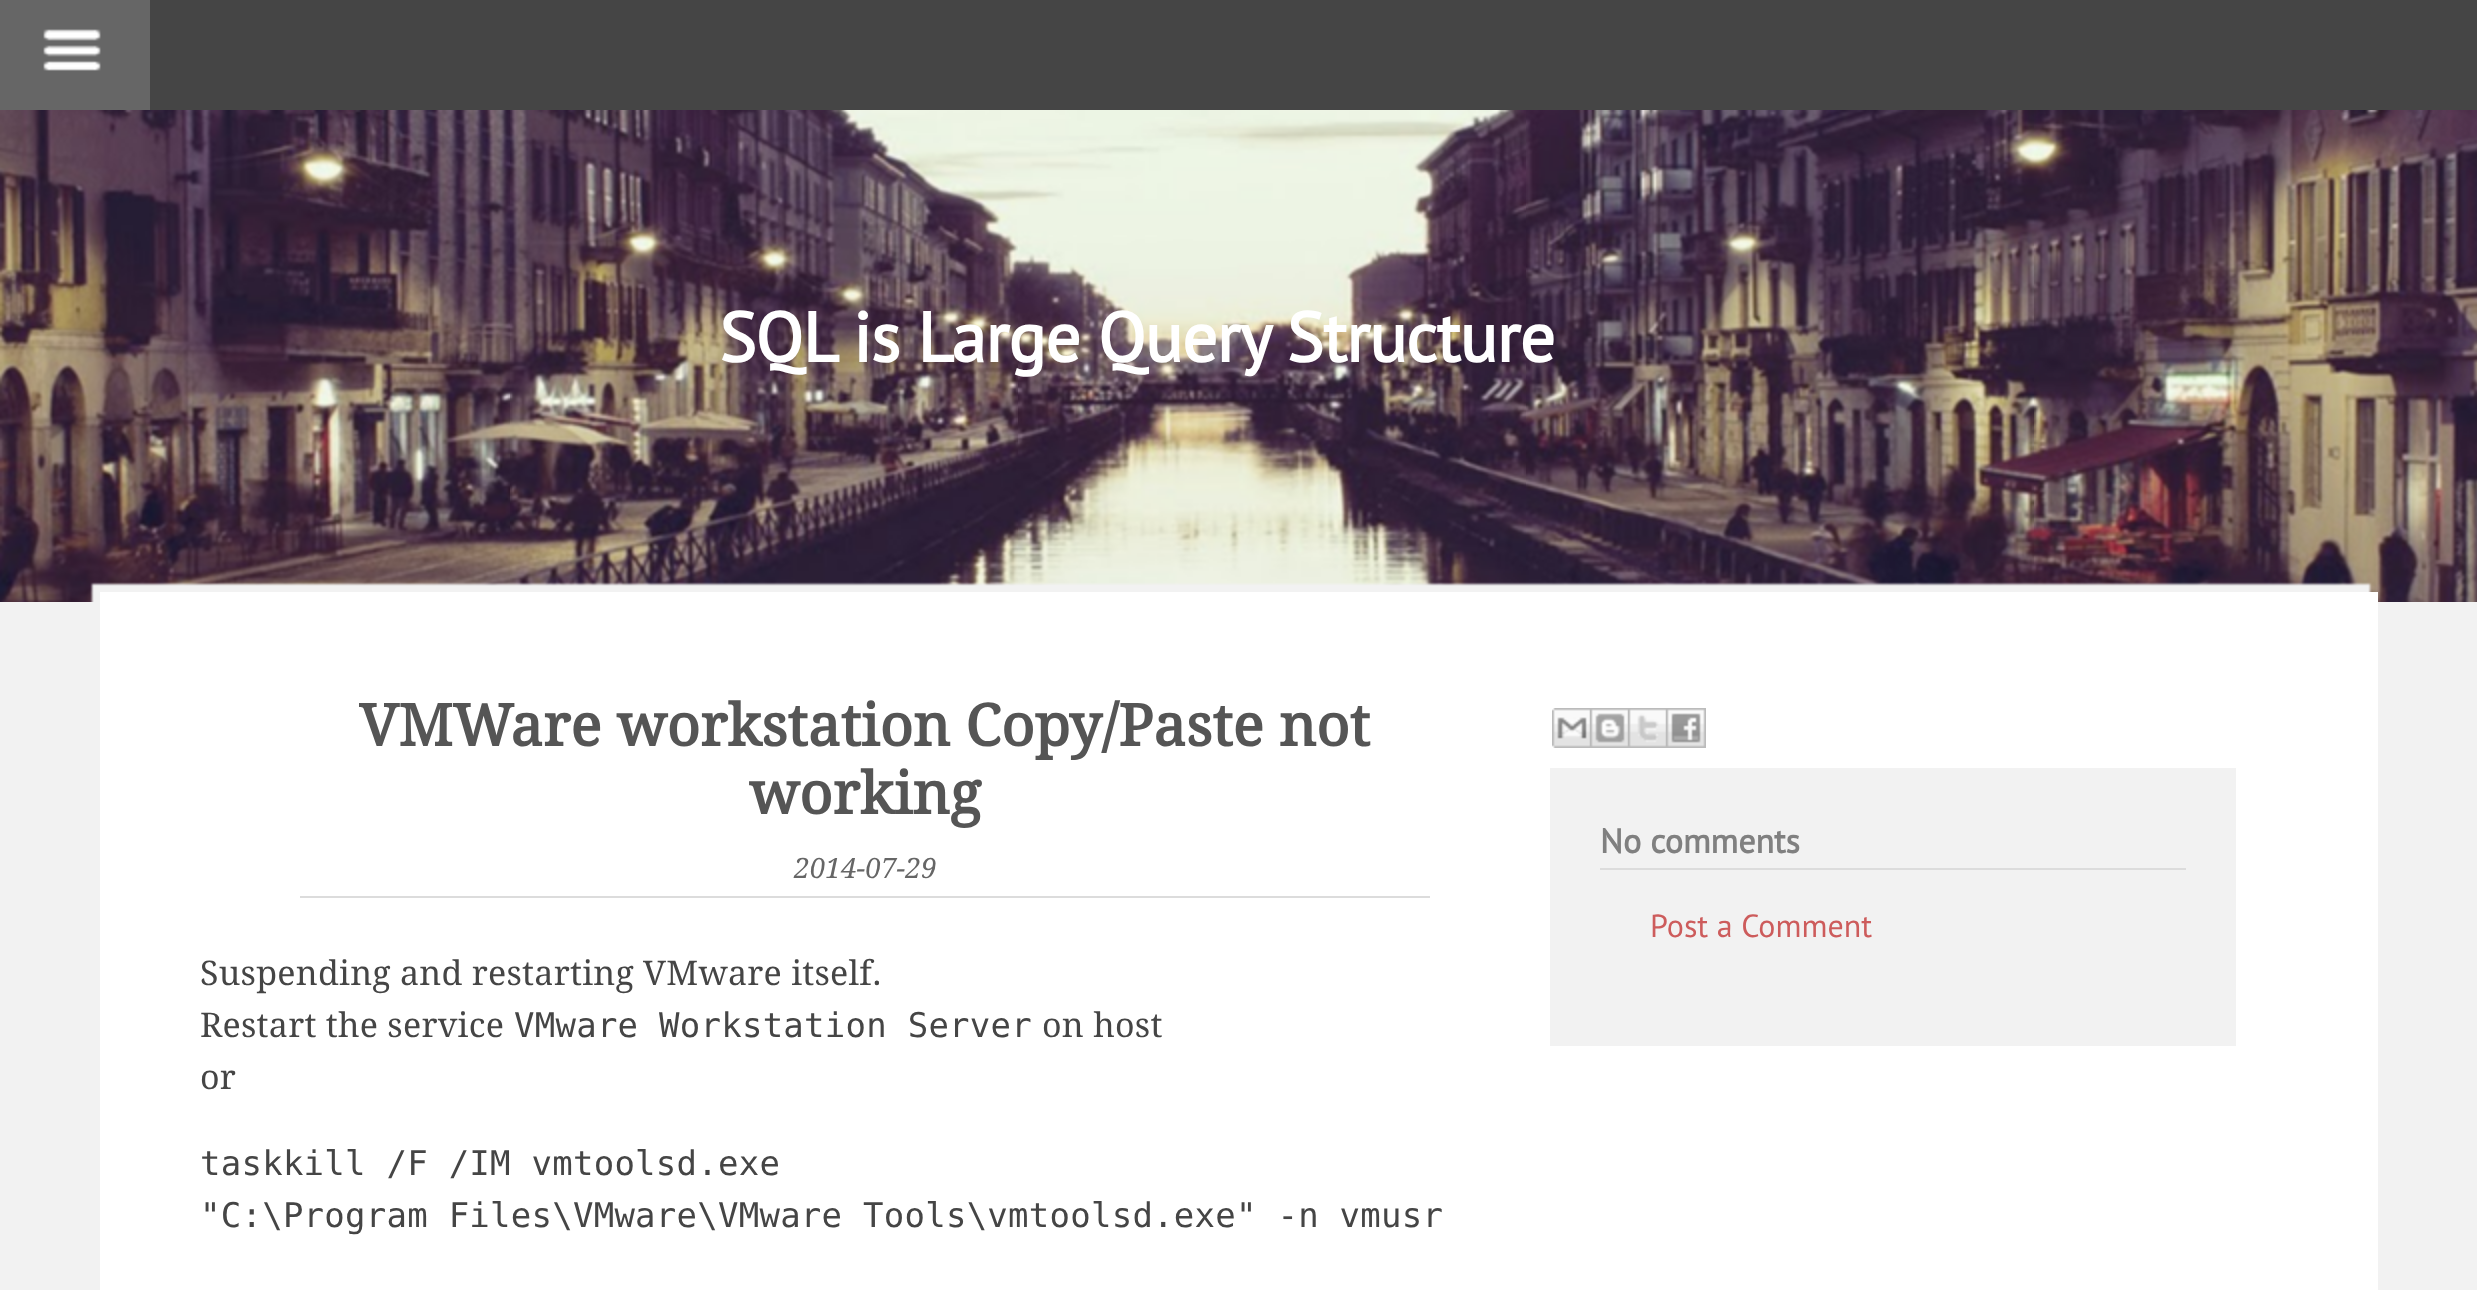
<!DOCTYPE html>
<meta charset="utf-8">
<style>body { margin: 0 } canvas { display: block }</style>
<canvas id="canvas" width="2477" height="1290"></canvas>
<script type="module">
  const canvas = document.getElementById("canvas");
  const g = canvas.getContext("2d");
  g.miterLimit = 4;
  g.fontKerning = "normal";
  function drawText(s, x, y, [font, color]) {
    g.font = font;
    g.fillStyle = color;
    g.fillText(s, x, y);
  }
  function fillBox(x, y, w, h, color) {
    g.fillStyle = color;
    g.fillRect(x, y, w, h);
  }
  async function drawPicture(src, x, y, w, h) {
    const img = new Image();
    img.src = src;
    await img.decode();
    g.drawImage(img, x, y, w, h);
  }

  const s1 = ["bold 70px PT Sans", "#FFFFFF"];
  const s2 = ["bold 58px Droid Serif", "#555555"];
  const s3 = ["italic 28px Droid Serif", "#666666"];
  const s4 = ["34px Droid Serif", "#454545"];
  const s5 = ["34px DejaVu Sans Mono", "#454545"];
  const s6 = ["bold 34px PT Sans", "#808080"];
  const s7 = ["32px PT Sans", "#CD5C5C"];

  fillBox(0, 0, 2477, 1290, "#454545");
  fillBox(0, 0, 150, 110, "#666666");
  await drawPicture("pic1.png", 43, 29, 58, 42);
  await drawPicture("pic2.png", 0, 110, 2477, 492);
  g.letterSpacing = "-0.8px";
  drawText("SQL is Large Query Structure", 719, 362, s1);
  fillBox(0, 602, 2477, 688, "#F2F2F2");
  g.filter = "blur(1px)";
  g.beginPath();
  g.rect(92, 584, 2278, 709);
  g.fill();
  g.filter = "none";
  fillBox(100, 592, 2278, 698, "#FFFFFF");
  fillBox(300, 896, 1130, 2, "#DCDCDC");
  g.letterSpacing = "0px";
  drawText("VMWare workstation Copy/Paste not", 359, 746, s2);
  drawText("working", 749, 814, s2);
  drawText("2014-07-29", 794, 878, s3);
  g.letterSpacing = "0.25px";
  drawText("Suspending and restarting VMware itself.", 200, 985, s4);
  drawText("Restart the service", 200, 1037, s4);
  drawText("VMware Workstation Server", 514, 1037, s5);
  drawText("on host", 1042, 1037, s4);
  drawText("or", 200, 1089, s4);
  drawText("taskkill /F /IM vmtoolsd.exe", 200, 1175, s5);
  drawText("\"C:\\Program Files\\VMware\\VMware Tools\\vmtoolsd.exe\" -n vmusr", 200, 1227, s5);
  await drawPicture("pic3.png", 1552, 708, 38, 40);
  await drawPicture("pic4.png", 1590, 708, 38, 40);
  await drawPicture("pic5.png", 1628, 708, 38, 40);
  await drawPicture("pic6.png", 1666, 708, 40, 40);
  fillBox(1550, 768, 686, 278, "#F2F2F2");
  fillBox(1600, 868, 586, 2, "#DCDCDC");
  g.letterSpacing = "0px";
  drawText("No comments", 1600, 853, s6);
  drawText("Post a Comment", 1650, 937, s7);
</script>
